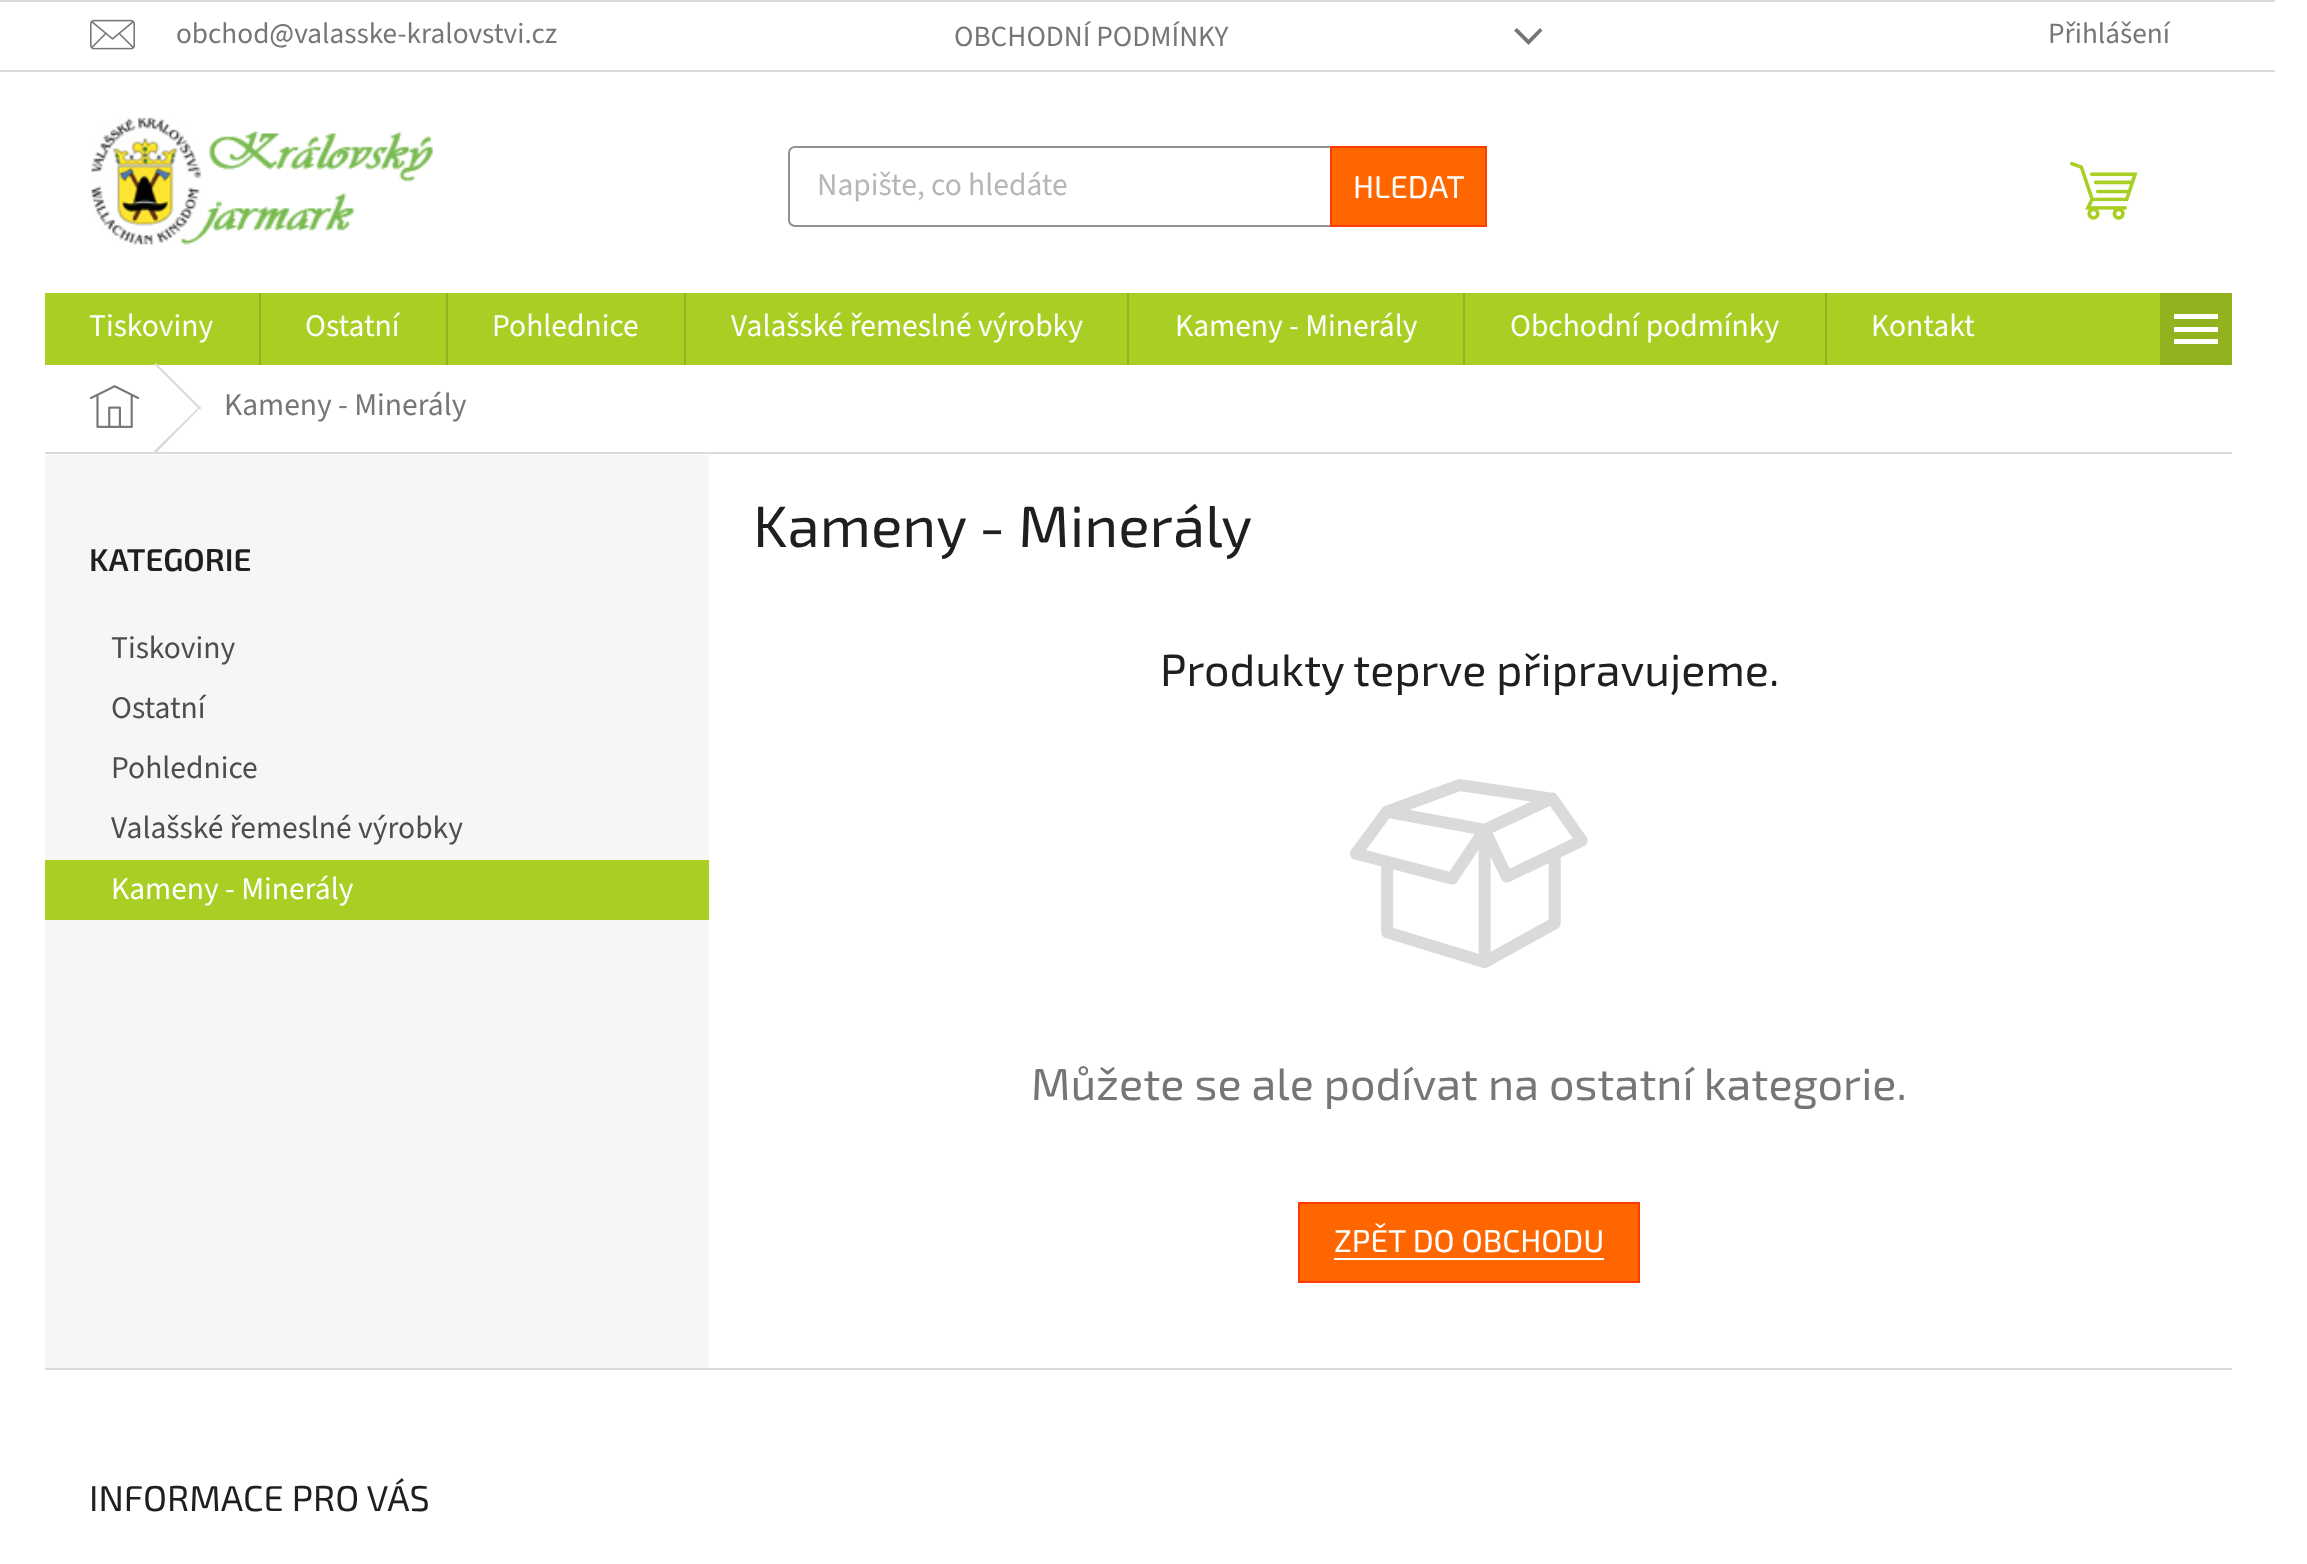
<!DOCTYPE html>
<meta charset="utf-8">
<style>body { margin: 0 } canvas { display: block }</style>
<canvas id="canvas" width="2307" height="1564"></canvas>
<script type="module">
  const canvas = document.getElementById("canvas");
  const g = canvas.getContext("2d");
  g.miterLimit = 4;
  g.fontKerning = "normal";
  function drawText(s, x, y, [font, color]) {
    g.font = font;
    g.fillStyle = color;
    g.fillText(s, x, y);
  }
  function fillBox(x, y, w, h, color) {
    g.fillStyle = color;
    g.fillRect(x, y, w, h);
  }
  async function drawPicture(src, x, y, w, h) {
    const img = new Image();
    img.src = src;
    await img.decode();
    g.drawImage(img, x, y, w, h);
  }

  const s1 = ["29.25px 'Source Sans 3'", "#767676"];
  const s2 = ["31.5px 'Source Sans 3'", "#B6B6B6"];
  const s3 = ["31.5px 'Exo 2'", "#FFFFFF"];
  const s4 = ["31.5px 'Source Sans 3'", "#FFFFFF"];
  const s5 = ["31.5px 'Source Sans 3'", "#767676"];
  const s6 = ["600 31.5px 'Exo 2'", "#1F1F1F"];
  const s7 = ["31.5px 'Source Sans 3'", "#4D4D4D"];
  const s8 = ["58.5px 'Exo 2'", "#1F1F1F"];
  const s9 = ["45px 'Exo 2'", "#1F1F1F"];
  const s10 = ["45px 'Exo 2'", "#767676"];
  const s11 = ["36px 'Exo 2'", "#1F1F1F"];

  fillBox(0, 0, 2307, 1564, "#FFFFFF");
  fillBox(0, 0, 2275, 2, "#DADADA");
  fillBox(0, 70, 2275, 2, "#DADADA");
  await drawPicture("pic1.png", 90, 19, 45, 31);
  drawText("obchod@valasske-kralovstvi.cz", 176, 43, s1);
  drawText("OBCHODNÍ PODMÍNKY", 954, 46, s1);
  g.beginPath();
  g.moveTo(1514, 30.5);
  g.lineTo(1517, 28);
  g.lineTo(1528.5, 39.5);
  g.lineTo(1540, 28);
  g.lineTo(1542.5, 30.5);
  g.lineTo(1528.5, 45);
  g.closePath();
  g.fill();
  drawText("Přihlášení", 2048, 43, s1);
  await drawPicture("pic2.png", 91, 117, 342, 128);
  g.beginPath();
  g.roundRect(789, 147, 697, 79, 6);
  g.strokeStyle = "#919191";
  g.lineWidth = 2;
  g.stroke();
  drawText("Napište, co hledáte", 817, 195, s2);
  g.fillStyle = "#FF6600";
  g.beginPath();
  g.rect(1331, 147, 155, 79);
  g.fill();
  g.strokeStyle = "#FF3C00";
  g.stroke();
  drawText("HLEDAT", 1353, 198, s3);
  await drawPicture("pic3.png", 2070, 161, 68, 59);
  fillBox(45, 293, 2115, 72, "#AACF24");
  drawText("Tiskoviny", 89, 336, s4);
  fillBox(259, 293, 2, 72, "#92B21F");
  drawText("Ostatní", 305, 336, s4);
  fillBox(446, 293, 2, 72, "#92B21F");
  drawText("Pohlednice", 492, 336, s4);
  fillBox(684, 293, 2, 72, "#92B21F");
  drawText("Valašské řemeslné výrobky", 731, 336, s4);
  fillBox(1127, 293, 2, 72, "#92B21F");
  drawText("Kameny - Minerály", 1175, 336, s4);
  fillBox(1463, 293, 2, 72, "#92B21F");
  drawText("Obchodní podmínky", 1510, 336, s4);
  fillBox(1825, 293, 2, 72, "#92B21F");
  drawText("Kontakt", 1871, 336, s4);
  fillBox(2160, 293, 72, 72, "#92B21F");
  g.fillStyle = "#FFFFFF";
  g.beginPath();
  g.moveTo(2174, 344);
  g.lineTo(2218, 344);
  g.lineTo(2218, 339);
  g.lineTo(2174, 339);
  g.closePath();
  g.moveTo(2174, 332);
  g.lineTo(2218, 332);
  g.lineTo(2218, 327);
  g.lineTo(2174, 327);
  g.closePath();
  g.moveTo(2174, 314);
  g.lineTo(2174, 319);
  g.lineTo(2218, 319);
  g.lineTo(2218, 314);
  g.closePath();
  g.fill();
  fillBox(45, 452, 2187, 2, "#DADADA");
  await drawPicture("pic4.png", 89, 385, 51, 43);
  g.beginPath();
  g.moveTo(154, 364);
  g.lineTo(156, 363);
  g.lineTo(201, 408);
  g.lineTo(200, 410);
  g.closePath();
  g.fill();
  g.beginPath();
  g.moveTo(200, 406);
  g.lineTo(201, 407);
  g.lineTo(156, 453);
  g.lineTo(154, 451);
  g.closePath();
  g.fill();
  drawText("Kameny - Minerály", 224, 415, s5);
  fillBox(45, 455, 664, 913, "#F6F6F6");
  drawText("KATEGORIE", 89, 571, s6);
  drawText("Tiskoviny", 111, 658, s7);
  drawText("Ostatní", 111, 718, s7);
  drawText("Pohlednice", 111, 778, s7);
  drawText("Valašské řemeslné výrobky", 111, 838, s7);
  fillBox(45, 860, 664, 60, "#AACF24");
  drawText("Kameny - Minerály", 111, 899, s4);
  drawText("Kameny - Minerály", 753, 547, s8);
  drawText("Produkty teprve připravujeme.", 1160, 686, s9);
  await drawPicture("pic5.png", 1350, 779, 238, 189);
  drawText("Můžete se ale podívat na ostatní kategorie.", 1031, 1100, s10);
  g.fillStyle = "#FF6600";
  g.beginPath();
  g.rect(1299, 1203, 340, 79);
  g.fill();
  g.stroke();
  drawText("ZPĚT DO OBCHODU", 1334, 1252, s3);
  fillBox(1334, 1258, 270, 2, "#FFFFFF");
  fillBox(45, 1368, 2187, 2, "#DADADA");
  drawText("INFORMACE PRO VÁS", 89, 1511, s11);
</script>
